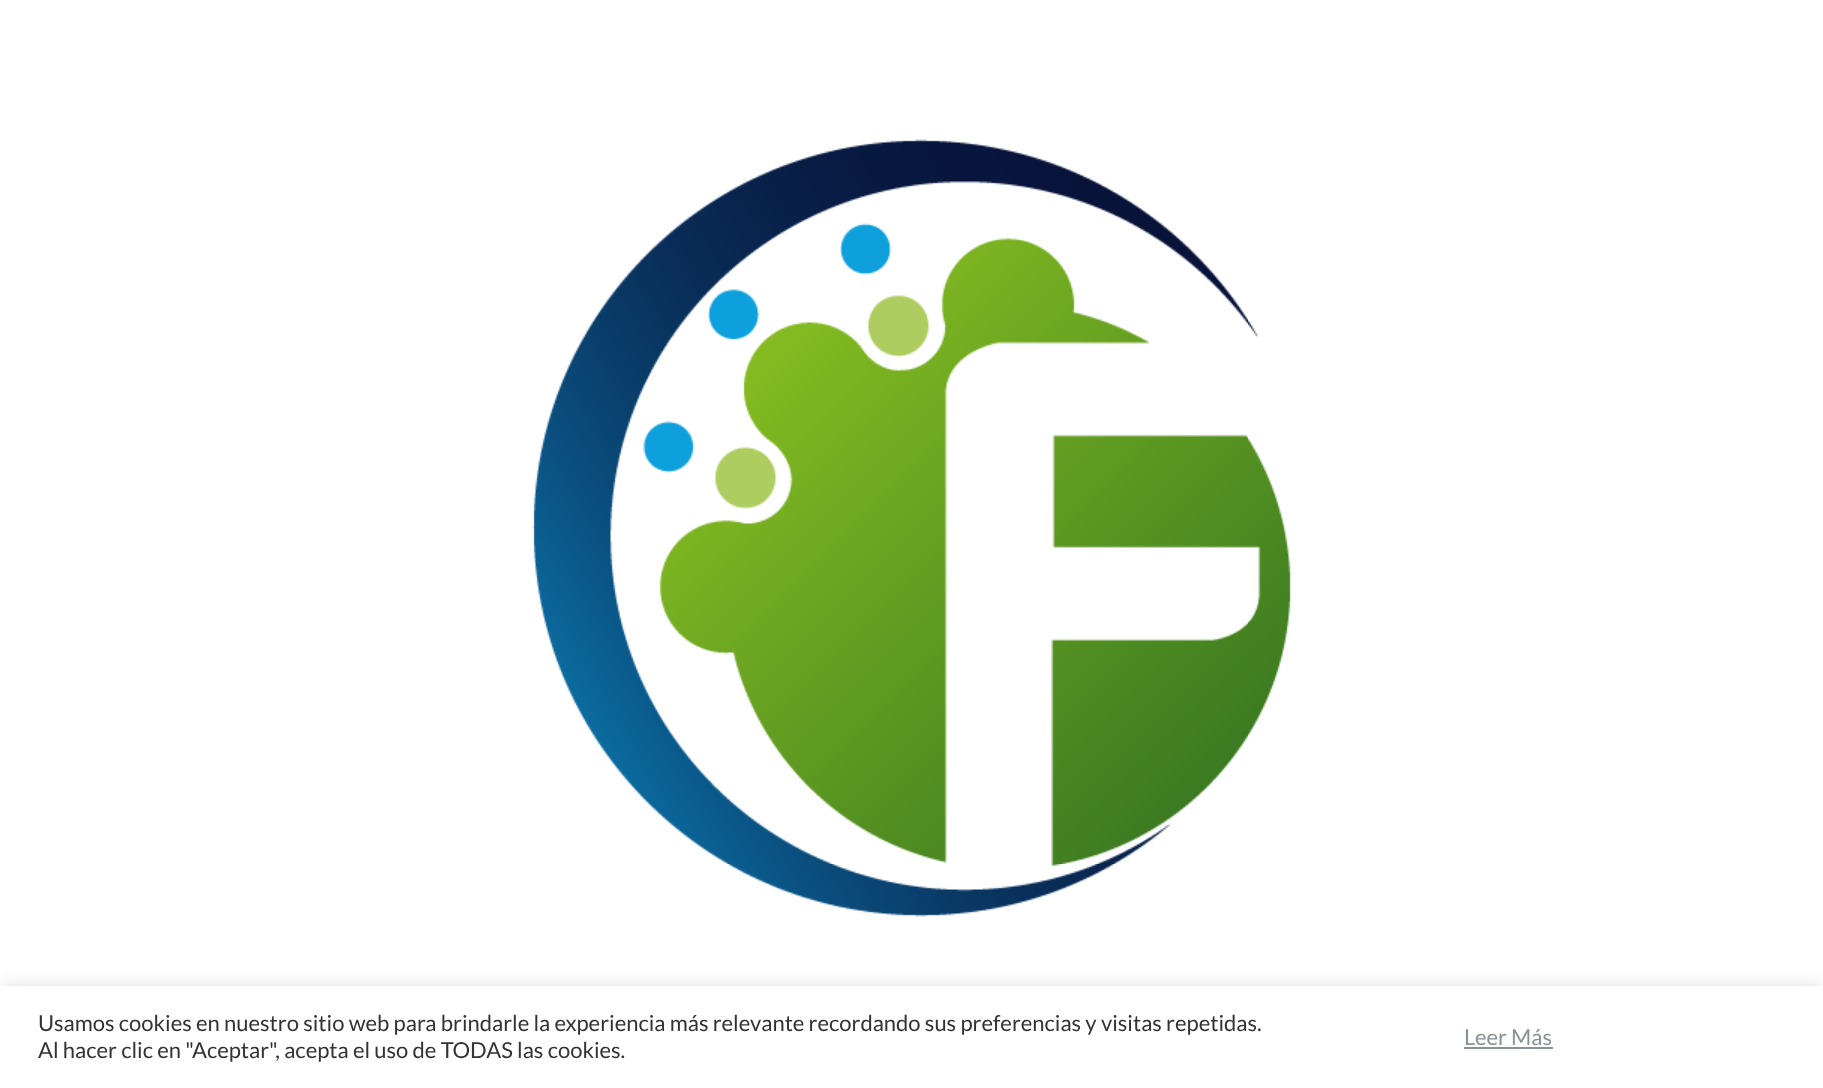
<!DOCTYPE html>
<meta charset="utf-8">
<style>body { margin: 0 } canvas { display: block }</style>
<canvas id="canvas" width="1823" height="1088"></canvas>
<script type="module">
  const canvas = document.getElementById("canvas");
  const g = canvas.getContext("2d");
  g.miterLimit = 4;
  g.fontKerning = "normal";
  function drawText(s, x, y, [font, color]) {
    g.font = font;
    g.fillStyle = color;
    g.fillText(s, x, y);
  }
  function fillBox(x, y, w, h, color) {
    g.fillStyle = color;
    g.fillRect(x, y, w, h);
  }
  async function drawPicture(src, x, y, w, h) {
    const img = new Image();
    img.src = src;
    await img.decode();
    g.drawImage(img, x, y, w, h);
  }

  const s1 = ["22px Lato", "#333333"];
  const s2 = ["22px Lato", "#899296"];

  fillBox(0, 0, 1823, 1088, "#FFFFFF");
  await drawPicture("pic1.png", 532, 139, 759, 778);
  g.fillStyle = "rgba(172, 171, 171, 0.3)";
  g.filter = "blur(7.5px)";
  g.beginPath();
  g.rect(0, 984, 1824, 104);
  g.fill();
  g.filter = "none";
  fillBox(0, 986, 1823, 102, "#FFFFFF");
  drawText("Usamos cookies en nuestro sitio web para brindarle la experiencia más relevante recordando sus preferencias y visitas repetidas.", 38, 1031, s1);
  drawText("Al hacer clic en \"Aceptar\", acepta el uso de TODAS las cookies.", 38, 1058, s1);
  drawText("Leer Más", 1464, 1045, s2);
  fillBox(1464, 1047, 89, 2, "#899296");
</script>
